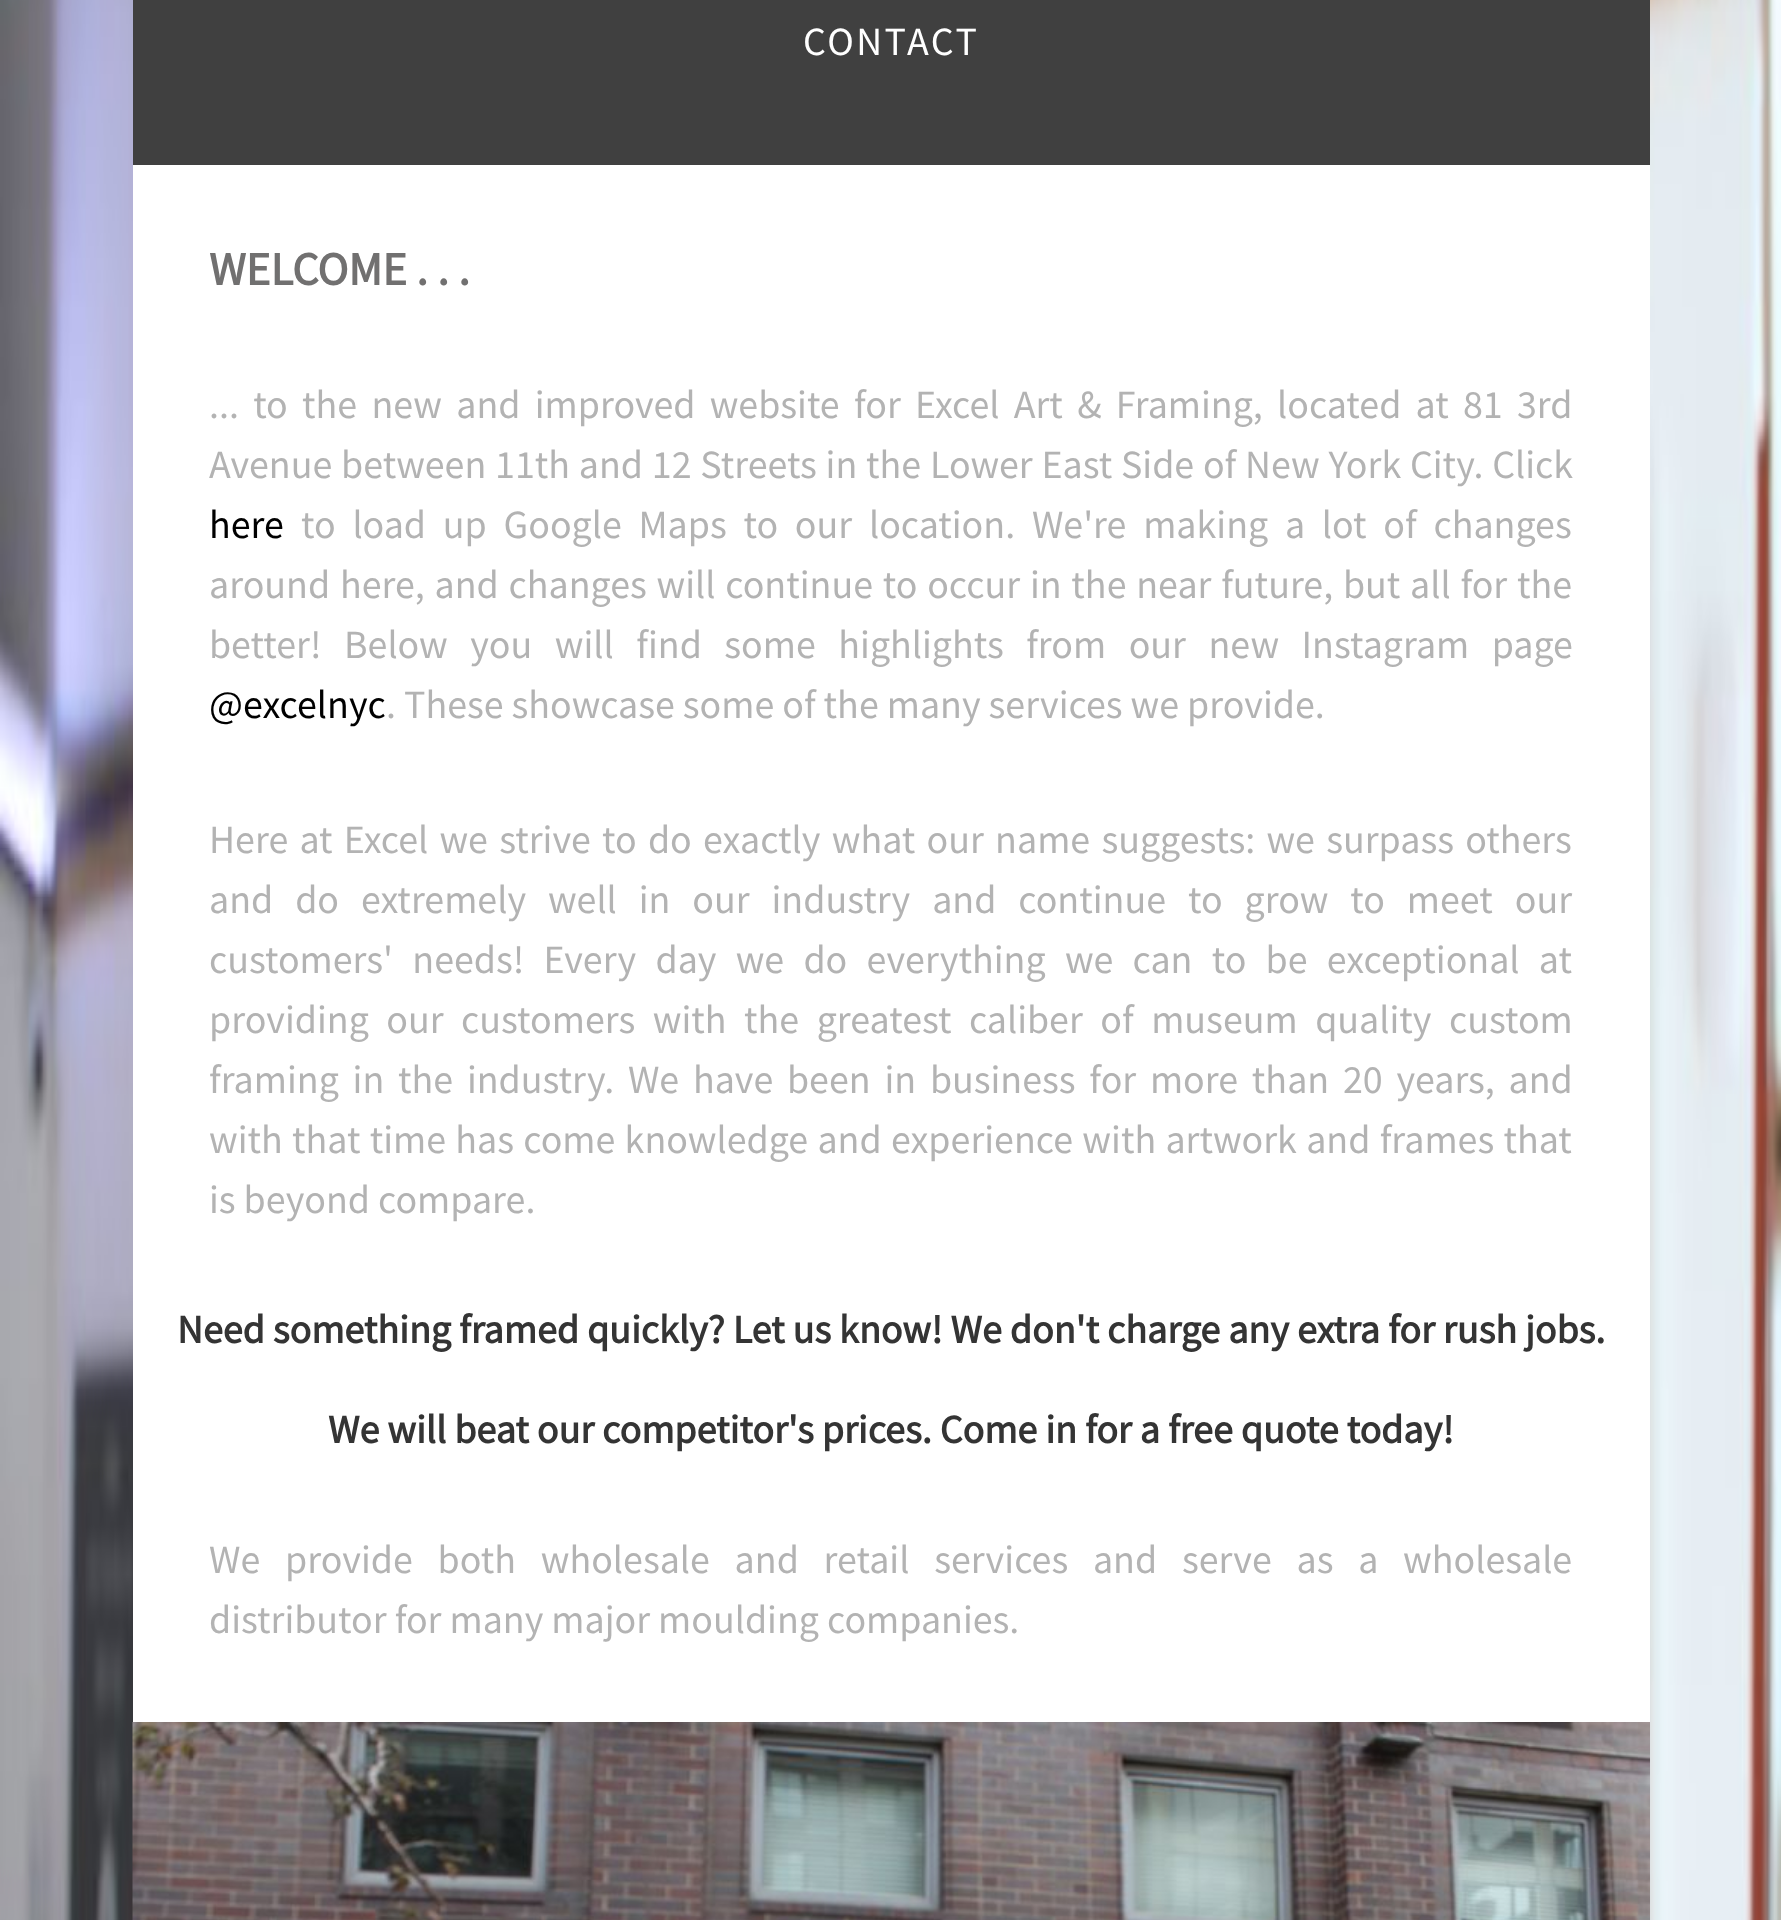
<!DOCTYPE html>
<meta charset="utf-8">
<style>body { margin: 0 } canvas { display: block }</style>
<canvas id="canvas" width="1781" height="1920"></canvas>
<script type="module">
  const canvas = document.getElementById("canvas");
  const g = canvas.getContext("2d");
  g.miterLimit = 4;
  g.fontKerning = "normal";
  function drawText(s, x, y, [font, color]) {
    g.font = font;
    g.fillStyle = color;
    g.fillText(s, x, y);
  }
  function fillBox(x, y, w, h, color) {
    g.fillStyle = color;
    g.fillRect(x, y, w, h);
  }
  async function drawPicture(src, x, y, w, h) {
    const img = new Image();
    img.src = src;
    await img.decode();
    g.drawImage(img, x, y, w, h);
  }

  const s1 = ["40px Source Sans Pro", "#FFFFFF"];
  const s2 = ["bold 46.75px Source Sans Pro", "#717070"];
  const s3 = ["40px Source Sans Pro", "#B3B3B3"];
  const s4 = ["40px Source Sans Pro", "#000000"];
  const s5 = ["bold 40px Source Sans Pro", "#343434"];

  fillBox(0, 0, 1781, 1920, "#FFFFFF");
  await drawPicture("pic1.png", 0, 0, 1781, 1920);
  fillBox(133, 165, 1517, 1557, "#FFFFFF");
  fillBox(133, 0, 1517, 165, "#404040");
  g.letterSpacing = "2.5px";
  drawText("CONTACT", 803, 55, s1);
  g.letterSpacing = "0px";
  drawText("WELCOME . . .", 209, 285, s2);
  g.wordSpacing = "6.25px";
  drawText("... to the new and improved website for Excel Art & Framing, located at 81 3rd", 209, 418, s3);
  g.wordSpacing = "0.75px";
  drawText("Avenue between 11th and 12 Streets in the Lower East Side of New York City. Click", 209, 478, s3);
  g.wordSpacing = "0px";
  drawText("here", 209, 538, s4);
  g.wordSpacing = "8.75px";
  drawText("to load up Google Maps to our location. We're making a lot of changes", 301, 538, s3);
  g.wordSpacing = "1.75px";
  drawText("around here, and changes will continue to occur in the near future, but all for the", 209, 598, s3);
  g.wordSpacing = "14.5px";
  drawText("better! Below you will find some highlights from our new Instagram page", 209, 658, s3);
  g.wordSpacing = "0px";
  drawText("@excelnyc", 209, 718, s4);
  drawText(". These showcase some of the many services we provide.", 386, 718, s3);
  g.wordSpacing = "3.25px";
  drawText("Here at Excel we strive to do exactly what our name suggests: we surpass others", 209, 853, s3);
  g.wordSpacing = "13.9px";
  drawText("and do extremely well in our industry and continue to grow to meet our", 209, 913, s3);
  g.wordSpacing = "11.25px";
  drawText("customers' needs! Every day we do everything we can to be exceptional at", 209, 973, s3);
  g.wordSpacing = "9.5px";
  drawText("providing our customers with the greatest caliber of museum quality custom", 209, 1033, s3);
  g.wordSpacing = "5.75px";
  drawText("framing in the industry. We have been in business for more than 20 years, and", 209, 1093, s3);
  g.wordSpacing = "1.25px";
  drawText("with that time has come knowledge and experience with artwork and frames that", 209, 1153, s3);
  g.wordSpacing = "0px";
  drawText("is beyond compare.", 209, 1213, s3);
  drawText("Need something framed quickly? Let us know! We don't charge any extra for rush jobs.", 177, 1343, s5);
  drawText("We will beat our competitor's prices. Come in for a free quote today!", 328, 1443, s5);
  g.wordSpacing = "16.75px";
  drawText("We provide both wholesale and retail services and serve as a wholesale", 209, 1573, s3);
  g.wordSpacing = "0px";
  drawText("distributor for many major moulding companies.", 209, 1633, s3);
  await drawPicture("pic2.png", 132, 1722, 1518, 198);
</script>
